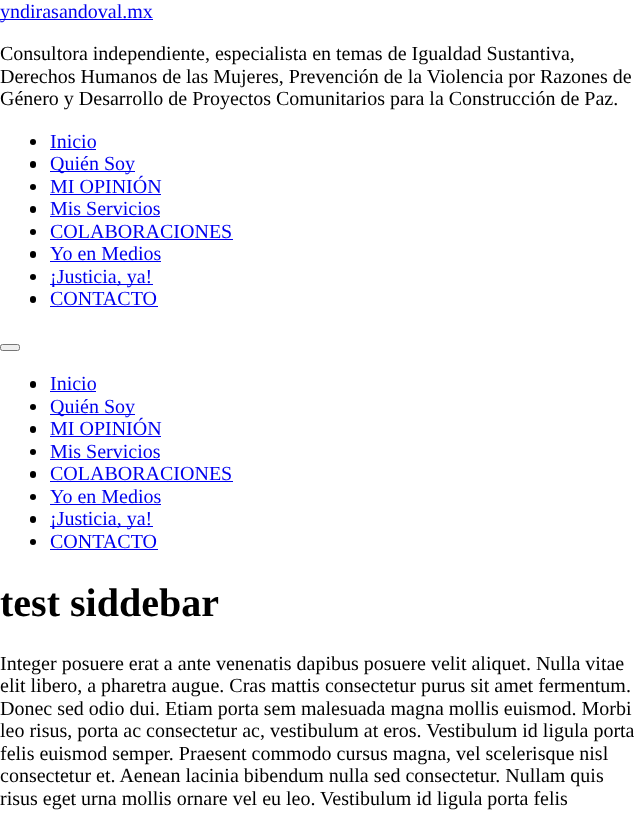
<!DOCTYPE html>
<meta charset="utf-8">
<style>body { margin: 0 } canvas { display: block }</style>
<canvas id="canvas" width="634" height="815"></canvas>
<script type="module">
  const canvas = document.getElementById("canvas");
  const g = canvas.getContext("2d");
  g.miterLimit = 4;
  g.fontKerning = "normal";
  function drawText(s, x, y, [font, color]) {
    g.font = font;
    g.fillStyle = color;
    g.fillText(s, x, y);
  }
  function fillBox(x, y, w, h, color) {
    g.fillStyle = color;
    g.fillRect(x, y, w, h);
  }
  function fillRounded(x, y, w, h, r, color) {
    g.fillStyle = color;
    g.beginPath();
    g.roundRect(x, y, w, h, r);
    g.fill();
  }

  const s1 = ["20px Liberation Serif", "#0000EE"];
  const s2 = ["20px Liberation Serif", "#000000"];
  const s3 = ["bold 40px Liberation Serif", "#000000"];

  fillBox(0, 0, 634, 815, "#FFFFFF");
  fillBox(0, 19, 153, 1, "#0000EE");
  drawText("yndirasandoval.mx", 0, 18, s1);
  drawText("Consultora independiente, especialista en temas de Igualdad Sustantiva,", 0, 60, s2);
  drawText("Derechos Humanos de las Mujeres, Prevención de la Violencia por Razones de", 0, 83, s2);
  drawText("Género y Desarrollo de Proyectos Comunitarios para la Construcción de Paz.", 0, 105, s2);
  g.beginPath();
  g.arc(33, 142, 3, 0, Math.PI * 2);
  g.fill();
  drawText("Inicio", 50, 148, s1);
  fillBox(50, 149, 46, 1, "#0000EE");
  fillRounded(30, 161, 6, 7, 3, "#000000");
  fillBox(50, 171, 85, 1, "#0000EE");
  drawText("Quién Soy", 50, 170, s1);
  g.fillStyle = "#000000";
  g.beginPath();
  g.arc(33, 187, 3, 0, Math.PI * 2);
  g.fill();
  drawText("MI OPINIÓN", 50, 193, s1);
  fillBox(50, 194, 111, 1, "#0000EE");
  fillRounded(30, 206, 6, 7, 3, "#000000");
  drawText("Mis Servicios", 50, 215, s1);
  fillBox(50, 216, 110, 1, "#0000EE");
  g.fillStyle = "#000000";
  g.beginPath();
  g.arc(33, 232, 3, 0, Math.PI * 2);
  g.fill();
  drawText("COLABORACIONES", 50, 238, s1);
  fillBox(50, 239, 183, 1, "#0000EE");
  fillRounded(30, 251, 6, 7, 3, "#000000");
  drawText("Yo en Medios", 50, 260, s1);
  fillBox(50, 261, 111, 1, "#0000EE");
  g.fillStyle = "#000000";
  g.beginPath();
  g.arc(33, 277, 3, 0, Math.PI * 2);
  g.fill();
  fillBox(50, 284, 103, 1, "#0000EE");
  drawText("¡Justicia, ya!", 50, 283, s1);
  fillRounded(30, 296, 6, 7, 3, "#000000");
  drawText("CONTACTO", 50, 305, s1);
  fillBox(50, 306, 108, 1, "#0000EE");
  g.fillStyle = "#EFEFEF";
  g.beginPath();
  g.roundRect(0.5, 344.5, 19, 6, 2);
  g.fill();
  g.strokeStyle = "#767676";
  g.stroke();
  fillRounded(30, 381, 6, 7, 3, "#000000");
  drawText("Inicio", 50, 390, s1);
  fillBox(50, 391, 46, 1, "#0000EE");
  g.fillStyle = "#000000";
  g.beginPath();
  g.arc(33, 407, 3, 0, Math.PI * 2);
  g.fill();
  fillBox(50, 414, 85, 1, "#0000EE");
  drawText("Quién Soy", 50, 413, s1);
  fillRounded(30, 426, 6, 7, 3, "#000000");
  drawText("MI OPINIÓN", 50, 435, s1);
  fillBox(50, 436, 111, 1, "#0000EE");
  g.fillStyle = "#000000";
  g.beginPath();
  g.arc(33, 452, 3, 0, Math.PI * 2);
  g.fill();
  drawText("Mis Servicios", 50, 458, s1);
  fillBox(50, 459, 110, 1, "#0000EE");
  fillRounded(30, 471, 6, 7, 3, "#000000");
  drawText("COLABORACIONES", 50, 480, s1);
  fillBox(50, 481, 183, 1, "#0000EE");
  g.fillStyle = "#000000";
  g.beginPath();
  g.arc(33, 497, 3, 0, Math.PI * 2);
  g.fill();
  drawText("Yo en Medios", 50, 503, s1);
  fillBox(50, 504, 111, 1, "#0000EE");
  fillRounded(30, 516, 6, 7, 3, "#000000");
  fillBox(50, 526, 103, 1, "#0000EE");
  drawText("¡Justicia, ya!", 50, 525, s1);
  g.fillStyle = "#000000";
  g.beginPath();
  g.arc(33, 542, 3, 0, Math.PI * 2);
  g.fill();
  drawText("CONTACTO", 50, 548, s1);
  fillBox(50, 549, 108, 1, "#0000EE");
  drawText("test siddebar", 0, 616, s3);
  drawText("Integer posuere erat a ante venenatis dapibus posuere velit aliquet. Nulla vitae", 0, 670, s2);
  drawText("elit libero, a pharetra augue. Cras mattis consectetur purus sit amet fermentum.", 0, 692, s2);
  drawText("Donec sed odio dui. Etiam porta sem malesuada magna mollis euismod. Morbi", 0, 715, s2);
  drawText("leo risus, porta ac consectetur ac, vestibulum at eros. Vestibulum id ligula porta", 0, 737, s2);
  drawText("felis euismod semper. Praesent commodo cursus magna, vel scelerisque nisl", 0, 760, s2);
  drawText("consectetur et. Aenean lacinia bibendum nulla sed consectetur. Nullam quis", 0, 782, s2);
  drawText("risus eget urna mollis ornare vel eu leo. Vestibulum id ligula porta felis", 0, 805, s2);
</script>
